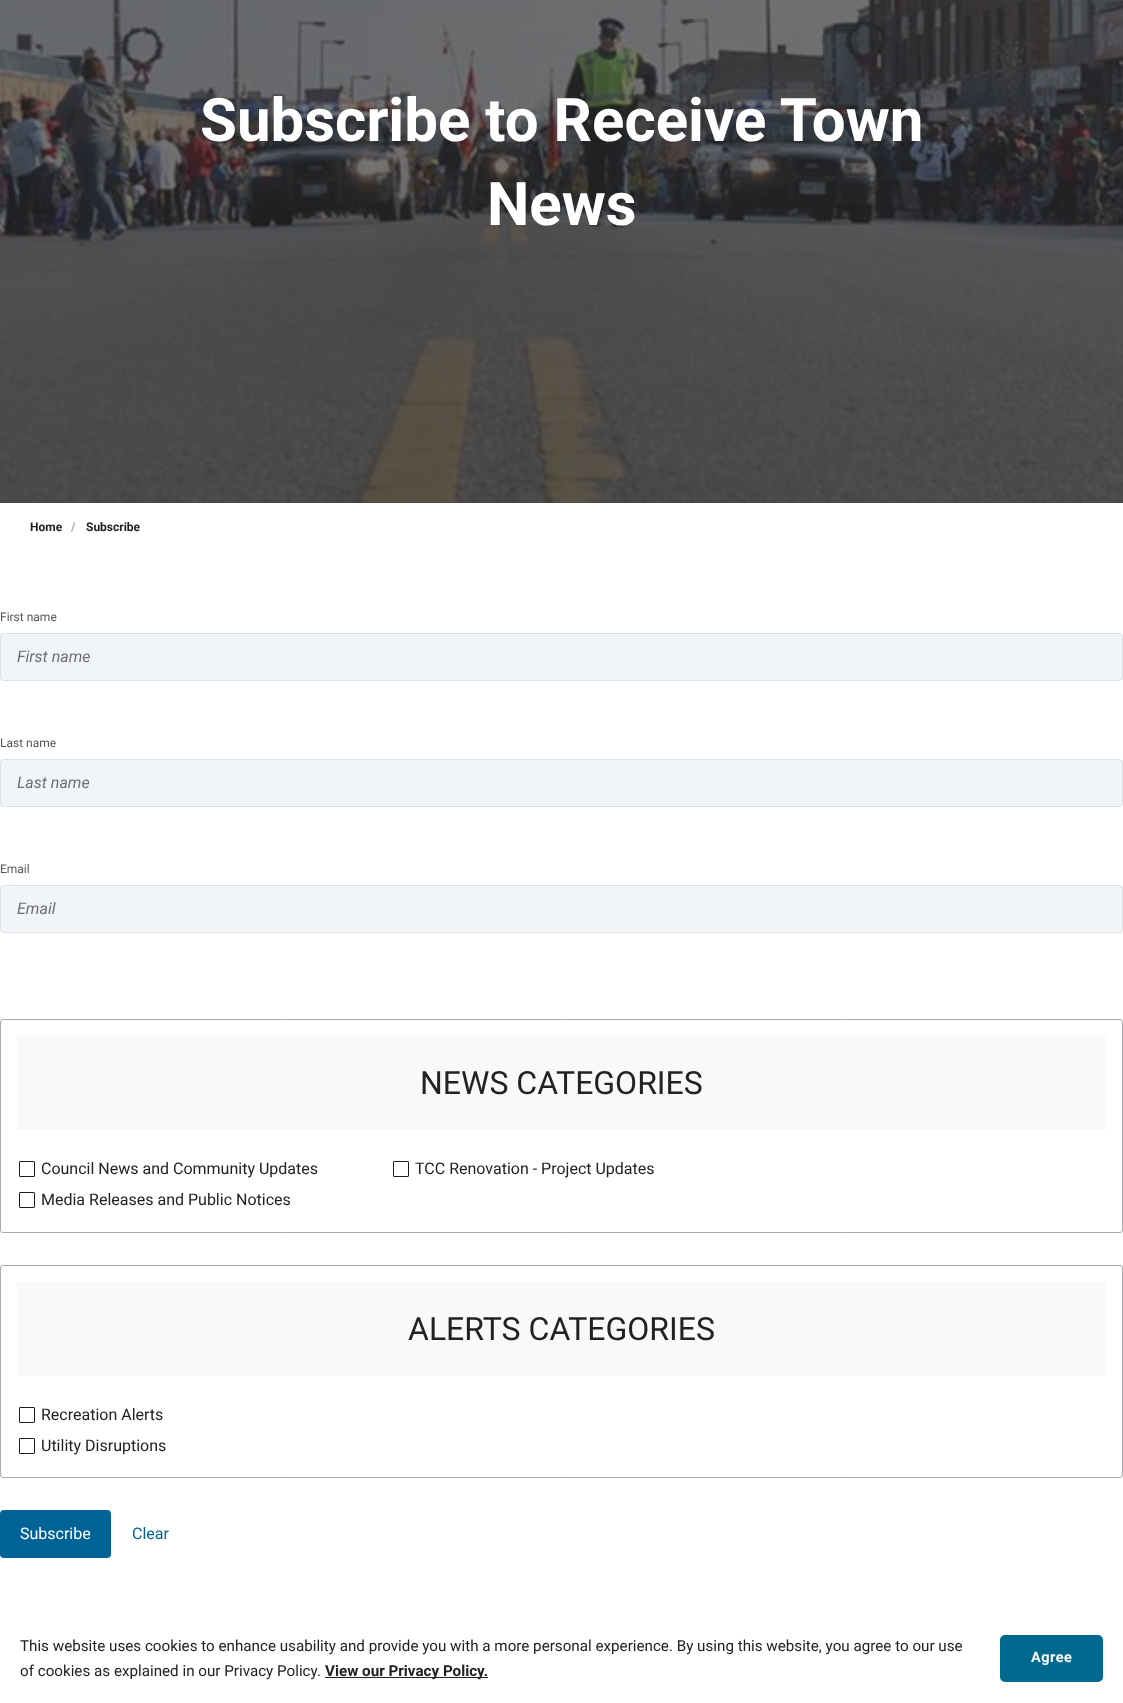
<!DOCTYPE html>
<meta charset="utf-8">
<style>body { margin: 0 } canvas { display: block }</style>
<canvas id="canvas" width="1123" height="1703"></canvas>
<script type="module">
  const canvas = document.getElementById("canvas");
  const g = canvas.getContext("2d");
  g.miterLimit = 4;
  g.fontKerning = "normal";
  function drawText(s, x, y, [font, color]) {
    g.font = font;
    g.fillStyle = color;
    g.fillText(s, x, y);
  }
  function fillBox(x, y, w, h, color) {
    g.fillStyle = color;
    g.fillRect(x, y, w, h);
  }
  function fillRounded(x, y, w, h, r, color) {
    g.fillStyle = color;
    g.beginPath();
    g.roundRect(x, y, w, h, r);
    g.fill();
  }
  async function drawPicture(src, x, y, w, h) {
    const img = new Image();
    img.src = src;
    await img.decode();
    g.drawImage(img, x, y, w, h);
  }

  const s1 = ["bold 60px Roboto", "#FFFFFF"];
  const s2 = ["bold 12px Roboto", "#222222"];
  const s3 = ["bold 12px Roboto", "#A7A7A7"];
  const s4 = ["12px Roboto", "#555555"];
  const s5 = ["italic 16px Roboto", "#6F6F6F"];
  const s6 = ["32px Roboto", "#222222"];
  const s7 = ["16px Roboto", "#222222"];
  const s8 = ["16px Roboto", "#FFFFFF"];
  const s9 = ["16px Roboto", "#006395"];
  const s10 = ["15.2px Roboto", "#222222"];
  const s11 = ["bold 15.2px Roboto", "#222222"];
  const s12 = ["bold 14.5px Roboto", "#FFFFFF"];

  fillBox(0, 0, 1123, 1703, "#FFFFFF");
  await drawPicture("pic1.png", 0, 0, 1123, 503);
  drawText("Subscribe to Receive Town", 200, 141, s1);
  drawText("News", 487, 225, s1);
  drawText("Home", 30, 531, s2);
  drawText("/", 71, 531, s3);
  drawText("Subscribe", 86, 531, s2);
  drawText("First name", 0, 621, s4);
  fillRounded(0, 633, 1123, 48, 4, "#F1F5F8");
  g.beginPath();
  g.roundRect(0.5, 633.5, 1122, 47, 3.5);
  g.strokeStyle = "rgba(0, 0, 0, 0.08)";
  g.stroke();
  drawText("First name", 17, 662, s5);
  drawText("Last name", 0, 747, s4);
  fillRounded(0, 759, 1123, 48, 4, "#F1F5F8");
  g.beginPath();
  g.roundRect(0.5, 759.5, 1122, 47, 3.5);
  g.stroke();
  drawText("Last name", 17, 788, s5);
  drawText("Email", 0, 873, s4);
  fillRounded(0, 885, 1123, 48, 4, "#F1F5F8");
  g.beginPath();
  g.roundRect(0.5, 885.5, 1122, 47, 3.5);
  g.stroke();
  drawText("Email", 17, 914, s5);
  g.beginPath();
  g.roundRect(0.5, 1019.5, 1122, 213, 2.5);
  g.strokeStyle = "#A7A9AC";
  g.stroke();
  fillBox(17, 1036, 1089, 94, "#F9F9F9");
  drawText("NEWS CATEGORIES", 420, 1094, s6);
  g.beginPath();
  g.roundRect(19.5, 1161.5, 15, 15, 0.5);
  g.strokeStyle = "#1D1D1D";
  g.stroke();
  drawText("Council News and Community Updates", 41, 1174, s7);
  g.beginPath();
  g.roundRect(393.5, 1161.5, 15, 15, 0.5);
  g.stroke();
  drawText("TCC Renovation - Project Updates", 415, 1174, s7);
  g.beginPath();
  g.roundRect(19.5, 1192.5, 15, 15, 0.5);
  g.stroke();
  drawText("Media Releases and Public Notices", 41, 1205, s7);
  g.beginPath();
  g.roundRect(0.5, 1265.5, 1122, 212, 2.5);
  g.strokeStyle = "#A7A9AC";
  g.stroke();
  fillBox(17, 1282, 1089, 94, "#F9F9F9");
  drawText("ALERTS CATEGORIES", 408, 1340, s6);
  g.beginPath();
  g.roundRect(19.5, 1407.5, 15, 15, 0.5);
  g.strokeStyle = "#1D1D1D";
  g.stroke();
  drawText("Recreation Alerts", 41, 1420, s7);
  g.beginPath();
  g.roundRect(19.5, 1438.5, 15, 15, 0.5);
  g.stroke();
  drawText("Utility Disruptions", 41, 1451, s7);
  fillRounded(0, 1510, 111, 48, 4, "#006395");
  drawText("Subscribe", 20, 1539, s8);
  drawText("Clear", 132, 1539, s9);
  drawText("This website uses cookies to enhance usability and provide you with a more personal experience. By using this website, you agree to our use", 20, 1651, s10);
  drawText("of cookies as explained in our Privacy Policy.", 20, 1676, s10);
  fillBox(325, 1677, 163, 1, "#222222");
  drawText("View our Privacy Policy.", 325, 1676, s11);
  g.fillStyle = "#00698F";
  g.beginPath();
  g.roundRect(1001, 1636, 101, 45, 4);
  g.fill();
  g.strokeStyle = "#00698F";
  g.lineWidth = 2;
  g.stroke();
  g.letterSpacing = "0.5px";
  drawText("Agree", 1031, 1662, s12);
</script>
